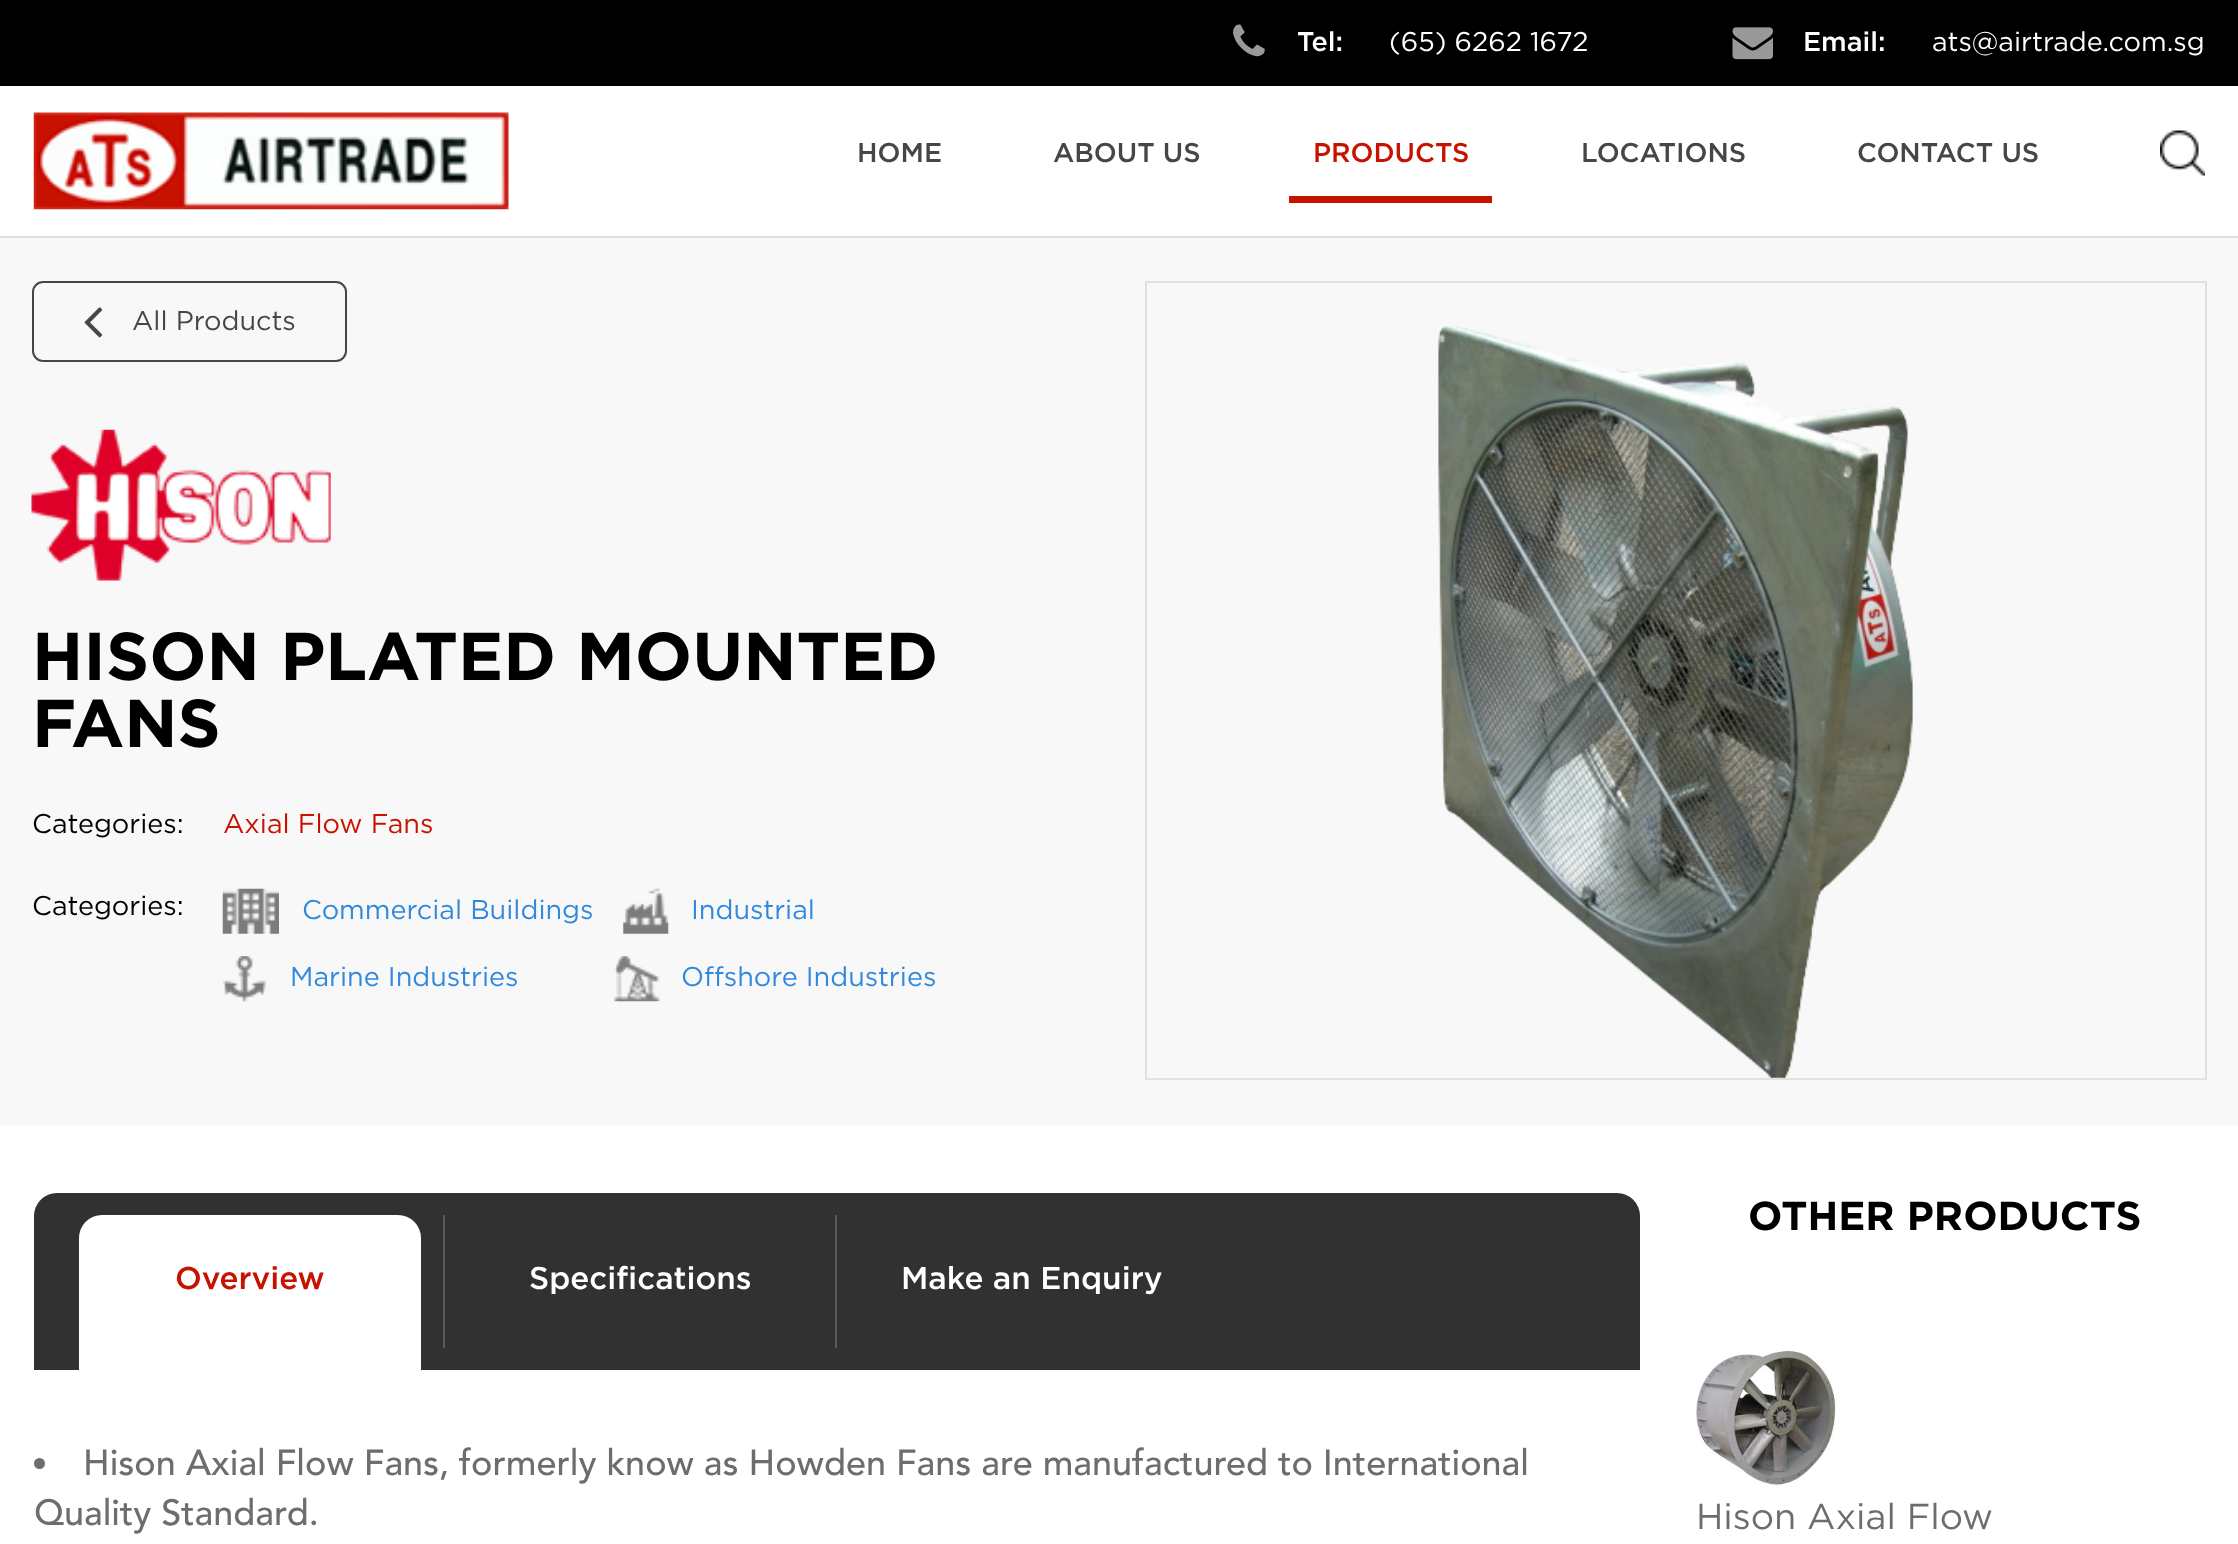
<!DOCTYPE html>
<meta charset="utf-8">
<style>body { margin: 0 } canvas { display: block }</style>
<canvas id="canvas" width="2238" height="1544"></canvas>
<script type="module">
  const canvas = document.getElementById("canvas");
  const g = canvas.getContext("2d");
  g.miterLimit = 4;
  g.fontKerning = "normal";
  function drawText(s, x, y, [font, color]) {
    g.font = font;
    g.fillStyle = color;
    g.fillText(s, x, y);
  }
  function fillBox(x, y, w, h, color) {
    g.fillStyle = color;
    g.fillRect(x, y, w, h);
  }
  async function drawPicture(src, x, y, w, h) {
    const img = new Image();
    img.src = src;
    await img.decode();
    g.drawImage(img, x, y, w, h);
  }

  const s1 = ["500 27px Gotham", "#FFFFFF"];
  const s2 = ["27px Gotham", "#FFFFFF"];
  const s3 = ["500 27px Gotham", "#464646"];
  const s4 = ["500 27px Gotham", "#C81200"];
  const s5 = ["27px Gotham", "#464646"];
  const s6 = ["bold 67.5px Gotham", "#000000"];
  const s7 = ["27px Gotham", "#000000"];
  const s8 = ["27px Gotham", "#C81200"];
  const s9 = ["27px Gotham", "#3189DD"];
  const s10 = ["500 31.5px Gotham", "#C81200"];
  const s11 = ["500 31.5px Gotham", "#FFFFFF"];
  const s12 = ["500 36px Avenir", "#6D6D6D"];
  const s13 = ["bold 40.5px Gotham", "#000000"];
  const s14 = ["36px Gotham", "#6D6D6D"];

  fillBox(0, 0, 2238, 1544, "#FFFFFF");
  fillBox(0, 0, 2238, 86, "#000000");
  await drawPicture("pic1.png", 1233, 24, 32, 33);
  drawText("Tel:", 1297, 51, s1);
  drawText("(65) 6262 1672", 1389, 51, s2);
  await drawPicture("pic2.png", 1732, 27, 41, 33);
  drawText("Email:", 1803, 51, s1);
  drawText("ats@airtrade.com.sg", 1932, 51, s2);
  await drawPicture("pic3.png", 33, 112, 476, 98);
  drawText("HOME", 857, 162, s3);
  drawText("ABOUT US", 1053, 162, s3);
  drawText("PRODUCTS", 1313, 162, s4);
  fillBox(1289, 196, 203, 7, "#C81200");
  drawText("LOCATIONS", 1581, 162, s3);
  drawText("CONTACT US", 1857, 162, s3);
  await drawPicture("pic4.png", 2160, 130, 45, 46);
  fillBox(0, 236, 2238, 2, "#DFDFDF");
  fillBox(0, 238, 2238, 887, "#F8F8F8");
  g.beginPath();
  g.roundRect(33, 282, 313, 79, 10);
  g.strokeStyle = "#464646";
  g.lineWidth = 2;
  g.stroke();
  await drawPicture("pic5.png", 84, 307, 19, 31);
  drawText("All Products", 132, 330, s5);
  await drawPicture("pic6.png", 31, 429, 300, 152);
  drawText("HISON PLATED MOUNTED", 32, 680, s6);
  drawText("FANS", 32, 747, s6);
  drawText("Categories:", 32, 833, s7);
  drawText("Axial Flow Fans", 223, 833, s8);
  drawText("Categories:", 32, 915, s7);
  await drawPicture("pic7.png", 222, 888, 57, 46);
  drawText("Commercial Buildings", 302, 919, s9);
  await drawPicture("pic8.png", 623, 888, 46, 46);
  drawText("Industrial", 691, 919, s9);
  await drawPicture("pic9.png", 223, 956, 43, 46);
  drawText("Marine Industries", 290, 986, s9);
  await drawPicture("pic10.png", 614, 956, 46, 46);
  drawText("Offshore Industries", 681, 986, s9);
  g.strokeStyle = "#E1E1E1";
  g.strokeRect(1146, 282, 1060, 797);
  await drawPicture("pic11.png", 1437, 325, 477, 753);
  g.fillStyle = "#313131";
  g.beginPath();
  g.roundRect(34, 1193, 1606, 177, [23, 23, 0, 0]);
  g.fill();
  fillBox(443, 1215, 2, 133, "#5A5A5A");
  g.fillStyle = "#FFFFFF";
  g.beginPath();
  g.roundRect(79, 1215, 342, 155, [23, 23, 0, 0]);
  g.fill();
  drawText("Overview", 175, 1289, s10);
  fillBox(835, 1215, 2, 133, "#5A5A5A");
  drawText("Specifications", 529, 1289, s11);
  drawText("Make an Enquiry", 901, 1289, s11);
  g.fillStyle = "#6D6D6D";
  g.beginPath();
  g.arc(39.5, 1463.5, 5.5, 0, Math.PI * 2);
  g.fill();
  drawText("Hison Axial Flow Fans, formerly know as Howden Fans are manufactured to International", 83, 1475, s12);
  drawText("Quality Standard.", 34, 1525, s12);
  drawText("OTHER PRODUCTS", 1748, 1230, s13);
  await drawPicture("pic12.png", 1696, 1350, 143, 136);
  drawText("Hison Axial Flow", 1696, 1529, s14);
</script>
